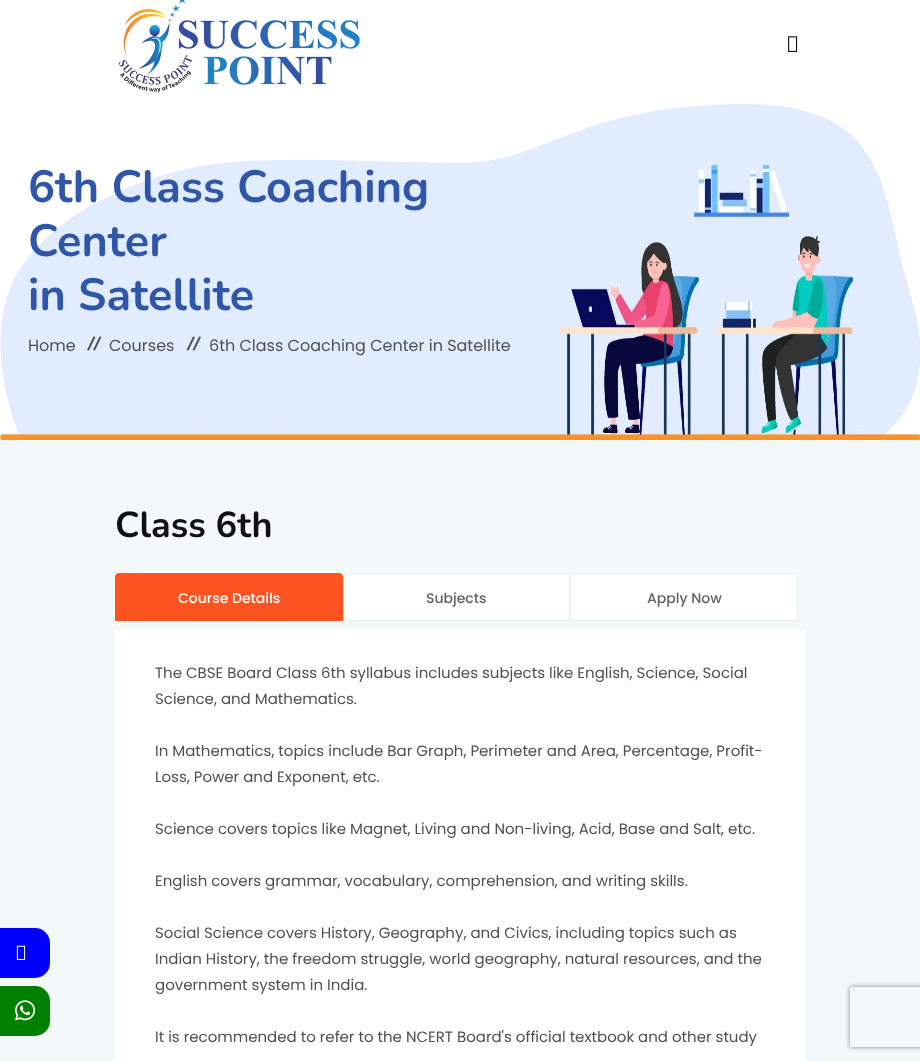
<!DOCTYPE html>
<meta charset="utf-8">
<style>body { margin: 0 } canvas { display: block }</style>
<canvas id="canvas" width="920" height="1061"></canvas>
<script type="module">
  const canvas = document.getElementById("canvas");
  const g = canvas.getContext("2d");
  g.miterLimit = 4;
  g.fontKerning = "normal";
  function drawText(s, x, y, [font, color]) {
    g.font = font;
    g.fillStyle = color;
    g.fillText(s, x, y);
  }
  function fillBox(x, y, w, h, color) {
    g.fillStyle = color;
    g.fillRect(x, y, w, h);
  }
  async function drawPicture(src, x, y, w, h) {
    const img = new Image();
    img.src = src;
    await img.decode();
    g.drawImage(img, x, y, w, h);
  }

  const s1 = ["bold 45px Nunito", "#3056A9"];
  const s2 = ["16px Poppins", "#505050"];
  const s3 = ["bold 36px Nunito", "#111111"];
  const s4 = ["500 14px Poppins", "#FFFFFF"];
  const s5 = ["500 14px Poppins", "#626262"];
  const s6 = ["15px Poppins", "#505050"];

  fillBox(0, 0, 920, 1061, "#FFFFFF");
  await drawPicture("pic1.png", 118, 0, 242, 93);
  await drawPicture("pic2.png", 788, 36, 10, 16);
  fillBox(0, 440, 920, 621, "#F3F8F9");
  g.fillStyle = "#0000FF";
  g.beginPath();
  g.roundRect(0, 928, 50, 50, [0, 15, 15, 0]);
  g.fill();
  await drawPicture("pic3.png", 16, 945, 10, 15);
  g.fillStyle = "#008000";
  g.beginPath();
  g.roundRect(0, 986, 50, 50, [0, 15, 15, 0]);
  g.fill();
  await drawPicture("pic4.png", 15, 1000, 21, 21);
  await drawPicture("pic5.png", 0, 104, 920, 336);
  drawText("6th Class Coaching", 28, 202, s1);
  drawText("Center", 28, 256, s1);
  drawText("in Satellite", 28, 310, s1);
  drawText("Home", 28, 351, s2);
  g.beginPath();
  g.moveTo(93.5, 336.5);
  g.lineTo(95.5, 337);
  g.lineTo(89, 350.5);
  g.lineTo(87, 350);
  g.closePath();
  g.fill();
  g.beginPath();
  g.moveTo(99.5, 336.5);
  g.lineTo(101.5, 337);
  g.lineTo(95, 350.5);
  g.lineTo(93, 350);
  g.closePath();
  g.fill();
  drawText("Courses", 109, 351, s2);
  g.beginPath();
  g.moveTo(193, 336.5);
  g.lineTo(195, 337);
  g.lineTo(188.5, 350.5);
  g.lineTo(186.5, 350);
  g.closePath();
  g.fill();
  g.beginPath();
  g.moveTo(199, 336.5);
  g.lineTo(201, 337);
  g.lineTo(194.5, 350.5);
  g.lineTo(192.5, 350);
  g.closePath();
  g.fill();
  drawText("6th Class Coaching Center in Satellite", 209, 351, s2);
  drawText("Class 6th", 115, 537, s3);
  g.fillStyle = "#FF5421";
  g.beginPath();
  g.roundRect(115.5, 573.5, 227, 47, [3.5, 3.5, 0, 0]);
  g.fill();
  g.strokeStyle = "#FF5421";
  g.stroke();
  drawText("Course Details", 178, 603, s4);
  g.beginPath();
  g.roundRect(343.5, 573.5, 226, 47, [3.5, 3.5, 0, 0]);
  g.fill();
  g.strokeStyle = "#EEEEEE";
  g.stroke();
  drawText("Subjects", 426, 603, s5);
  g.fillStyle = "#FFFFFF";
  g.beginPath();
  g.roundRect(570.5, 573.5, 227, 47, [3.5, 3.5, 0, 0]);
  g.fill();
  g.stroke();
  drawText("Apply Now", 647, 603, s5);
  fillBox(115, 630, 690, 431, "#FFFFFF");
  drawText("The CBSE Board Class 6th syllabus includes subjects like English, Science, Social", 155, 678, s6);
  drawText("Science, and Mathematics.", 155, 704, s6);
  drawText("In Mathematics, topics include Bar Graph, Perimeter and Area, Percentage, Profit-", 155, 756, s6);
  drawText("Loss, Power and Exponent, etc.", 155, 782, s6);
  drawText("Science covers topics like Magnet, Living and Non-living, Acid, Base and Salt, etc.", 155, 834, s6);
  drawText("English covers grammar, vocabulary, comprehension, and writing skills.", 155, 886, s6);
  drawText("Social Science covers History, Geography, and Civics, including topics such as", 155, 938, s6);
  drawText("Indian History, the freedom struggle, world geography, natural resources, and the", 155, 964, s6);
  drawText("government system in India.", 155, 990, s6);
  drawText("It is recommended to refer to the NCERT Board's official textbook and other study", 155, 1042, s6);
  g.save();
  g.beginPath();
  g.moveTo(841, 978);
  g.lineTo(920, 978);
  g.lineTo(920, 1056);
  g.lineTo(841, 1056);
  g.closePath();
  g.moveTo(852, 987);
  g.lineTo(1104, 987);
  g.bezierCurveTo(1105, 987, 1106, 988, 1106, 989);
  g.lineTo(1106, 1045);
  g.bezierCurveTo(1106, 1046, 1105, 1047, 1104, 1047);
  g.lineTo(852, 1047);
  g.bezierCurveTo(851, 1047, 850, 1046, 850, 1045);
  g.lineTo(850, 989);
  g.bezierCurveTo(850, 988, 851, 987, 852, 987);
  g.closePath();
  g.clip("evenodd");
  g.fillStyle = "#808080";
  g.filter = "blur(2.5px)";
  g.beginPath();
  g.roundRect(850, 987, 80, 60, 2);
  g.fill();
  g.filter = "none";
  g.restore();
</script>
